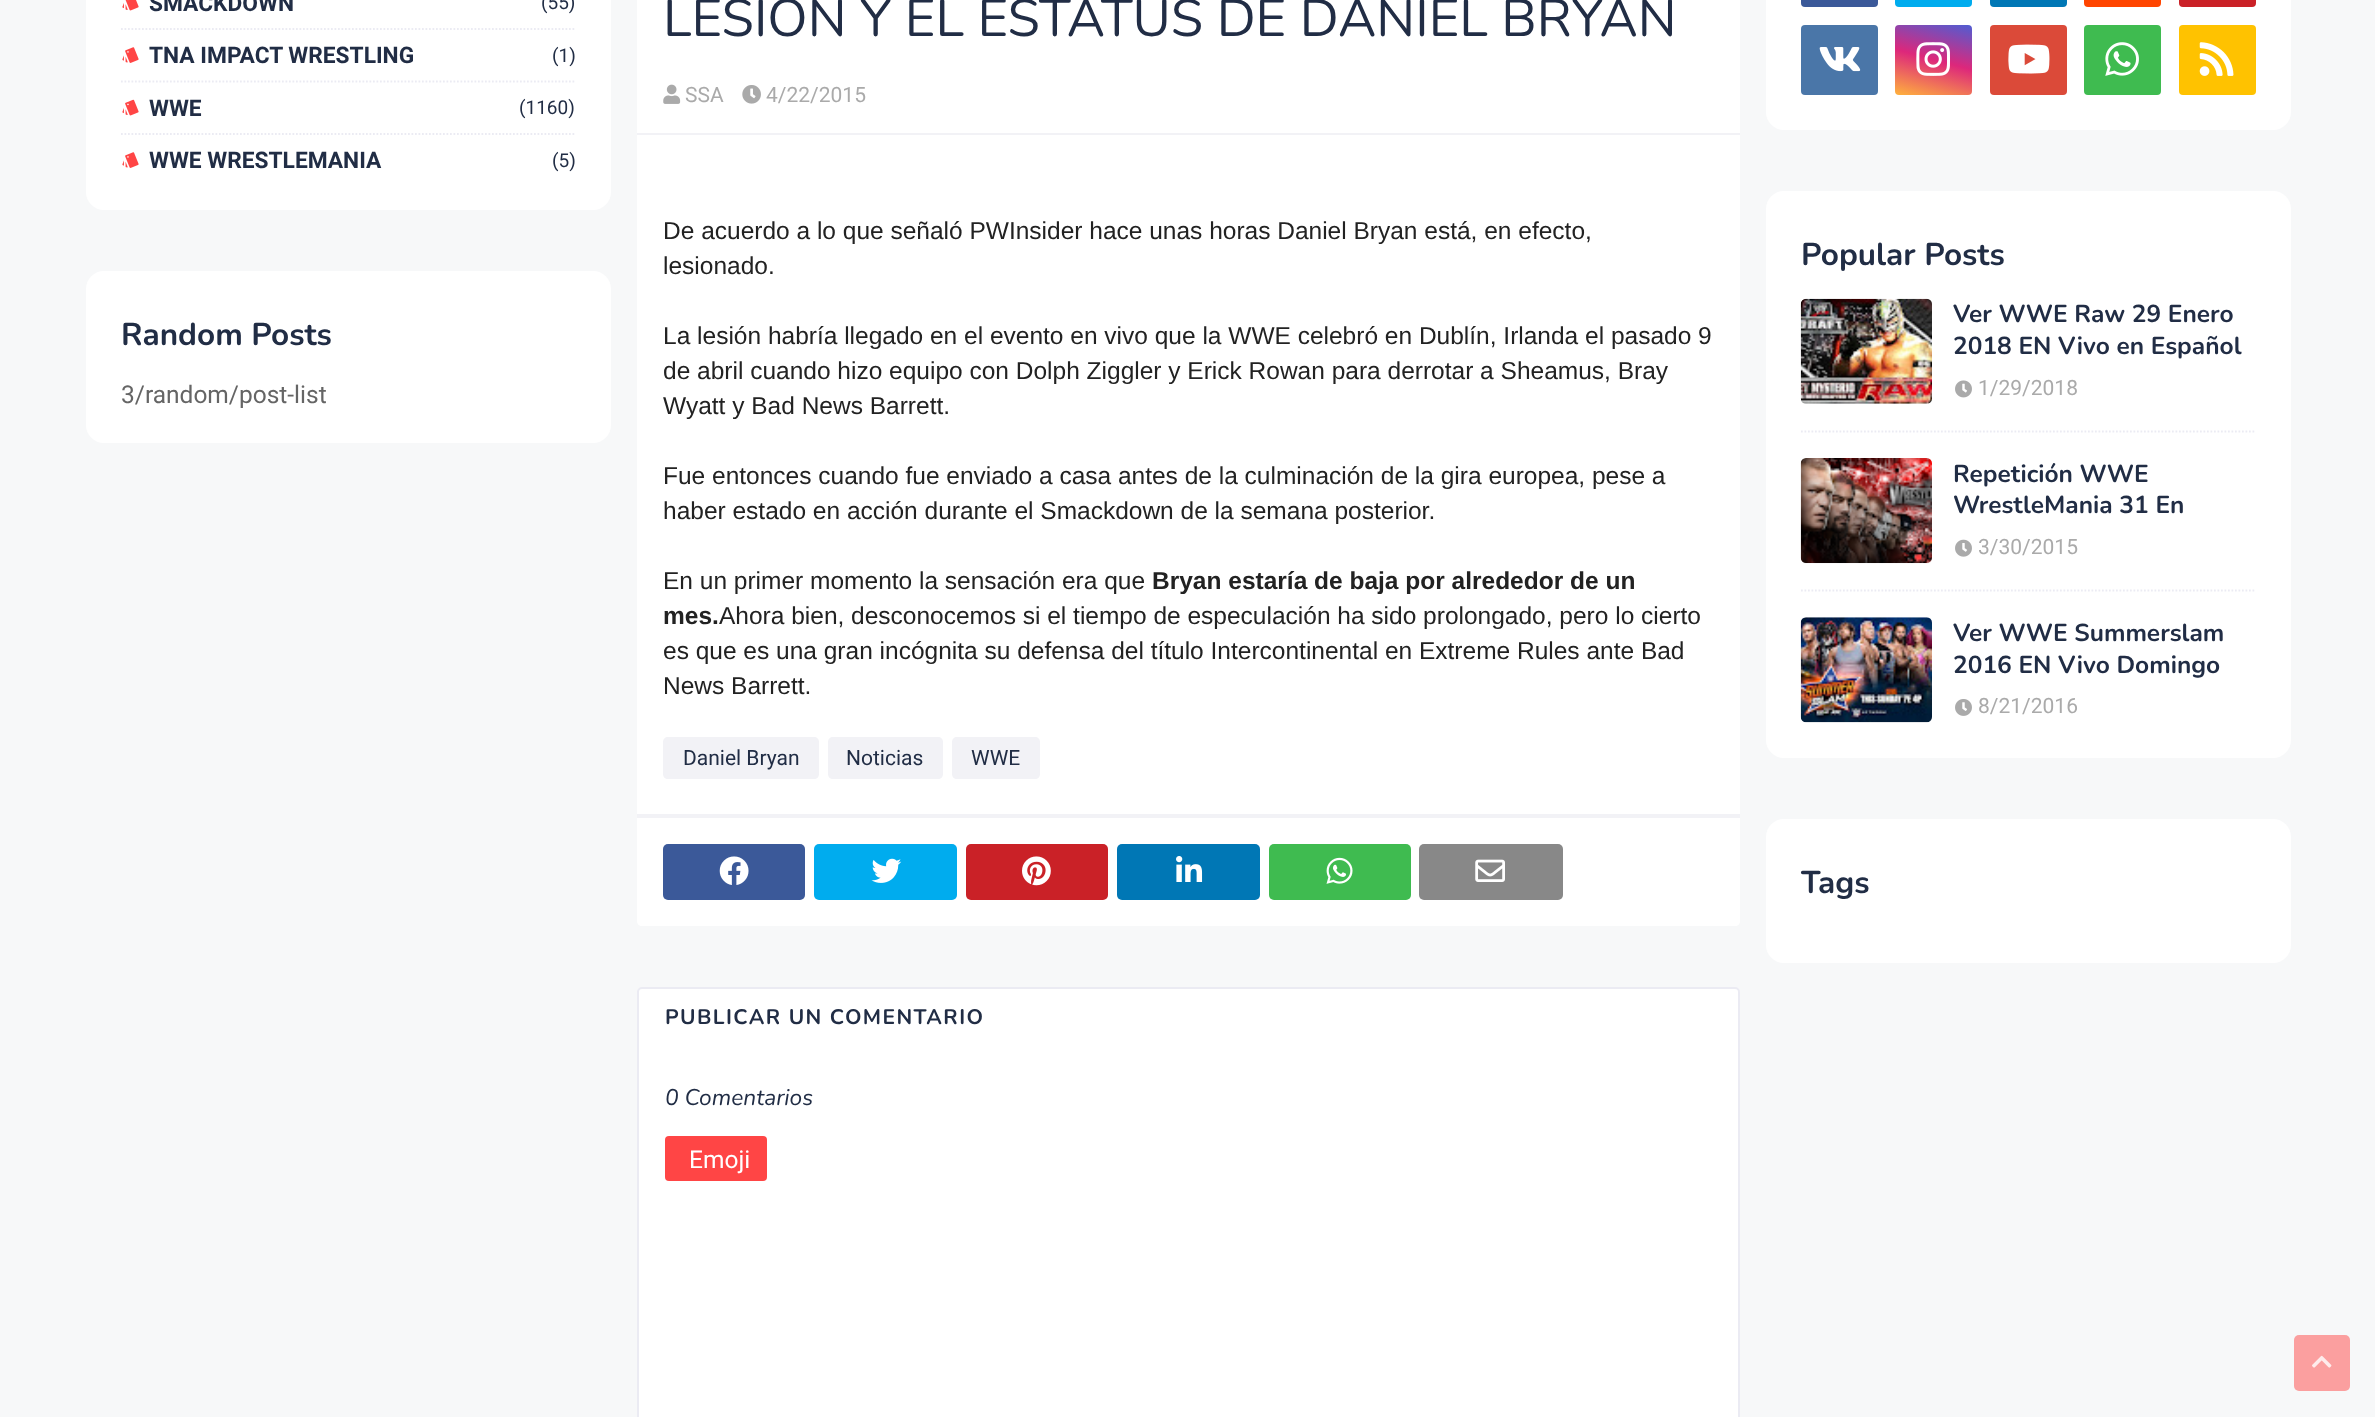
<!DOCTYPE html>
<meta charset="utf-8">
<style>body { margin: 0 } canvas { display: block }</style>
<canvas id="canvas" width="2375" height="1417"></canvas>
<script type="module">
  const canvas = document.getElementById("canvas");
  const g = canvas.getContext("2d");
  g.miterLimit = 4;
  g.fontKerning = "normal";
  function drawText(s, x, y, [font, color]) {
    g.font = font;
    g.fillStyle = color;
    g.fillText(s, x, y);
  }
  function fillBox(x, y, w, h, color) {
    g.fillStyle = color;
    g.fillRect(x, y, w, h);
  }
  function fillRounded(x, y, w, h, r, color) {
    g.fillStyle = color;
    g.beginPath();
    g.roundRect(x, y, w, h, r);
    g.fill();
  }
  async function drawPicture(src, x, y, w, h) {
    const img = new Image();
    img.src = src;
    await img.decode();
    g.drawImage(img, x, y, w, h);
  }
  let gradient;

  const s1 = ["bold 22.75px Roboto", "#212D45"];
  const s2 = ["19px Roboto", "#212D45"];
  const s3 = ["bold 31.5px Nunito", "#212D45"];
  const s4 = ["24.5px Roboto", "#656565"];
  const s5 = ["52.5px Nunito", "#212D45"];
  const s6 = ["21px Roboto", "#AAAAAA"];
  const s7 = ["24.5px Liberation Sans", "#222222"];
  const s8 = ["bold 24.5px Liberation Sans", "#222222"];
  const s9 = ["21px Roboto", "#212D45"];
  const s10 = ["bold 21px Nunito", "#212D45"];
  const s11 = ["italic 22.75px Nunito", "#212D45"];
  const s12 = ["24.5px Roboto", "#FFFFFF"];
  const s13 = ["bold 24.5px Nunito", "#212D45"];

  fillBox(0, 0, 2375, 1417, "#F7F8F9");
  fillRounded(86, -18, 525, 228, 18, "#FFFFFF");
  await drawPicture("pic1.png", 122, 0, 17, 11);
  drawText("SMACKDOWN", 149, 11, s1);
  drawText("(55)", 541, 9, s2);
  g.beginPath();
  g.moveTo(121, 29);
  g.lineTo(576, 29);
  g.strokeStyle = "#EBEBF3";
  g.lineWidth = 1.8;
  g.setLineDash([1.75, 1.75]);
  g.stroke();
  await drawPicture("pic2.png", 122, 47, 17, 16);
  drawText("TNA IMPACT WRESTLING", 149, 63, s1);
  drawText("(1)", 552, 62, s2);
  g.beginPath();
  g.moveTo(121, 81.5);
  g.lineTo(576, 81.5);
  g.stroke();
  await drawPicture("pic3.png", 122, 99, 17, 17);
  drawText("WWE", 149, 116, s1);
  drawText("(1160)", 519, 114, s2);
  g.beginPath();
  g.moveTo(121, 134);
  g.lineTo(576, 134);
  g.stroke();
  await drawPicture("pic2.png", 122, 152, 17, 16);
  drawText("WWE WRESTLEMANIA", 149, 168, s1);
  drawText("(5)", 552, 167, s2);
  fillRounded(86, 271, 525, 172, 18, "#FFFFFF");
  drawText("Random Posts", 121, 345, s3);
  drawText("3/random/post-list", 121, 403, s4);
  g.fillStyle = "#FFFFFF";
  g.beginPath();
  g.moveTo(655, -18);
  g.lineTo(1722, -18);
  g.bezierCurveTo(1732, -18, 1740, -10, 1740, 0);
  g.lineTo(1740, 921);
  g.bezierCurveTo(1740, 924, 1738, 926, 1735, 926);
  g.lineTo(642, 926);
  g.bezierCurveTo(639, 926, 637, 924, 637, 921);
  g.lineTo(637, 0);
  g.bezierCurveTo(637, -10, 645, -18, 655, -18);
  g.closePath();
  g.fill();
  drawText("LESIÓN Y EL ESTATUS DE DANIEL BRYAN", 663, 36, s5);
  await drawPicture("pic4.png", 663, 84, 18, 20);
  drawText("SSA", 685, 102, s6);
  await drawPicture("pic5.png", 742, 85, 19, 19);
  drawText("4/22/2015", 766, 102, s6);
  fillBox(637, 133, 1103, 2, "#F2F2F6");
  drawText("De acuerdo a lo que señaló PWInsider hace unas horas Daniel Bryan está, en efecto,", 663, 239, s7);
  drawText("lesionado.", 663, 274, s7);
  drawText("La lesión habría llegado en el evento en vivo que la WWE celebró en Dublín, Irlanda el pasado 9", 663, 344, s7);
  drawText("de abril cuando hizo equipo con Dolph Ziggler y Erick Rowan para derrotar a Sheamus, Bray", 663, 379, s7);
  drawText("Wyatt y Bad News Barrett.", 663, 414, s7);
  drawText("Fue entonces cuando fue enviado a casa antes de la culminación de la gira europea, pese a", 663, 484, s7);
  drawText("haber estado en acción durante el Smackdown de la semana posterior.", 663, 519, s7);
  drawText("En un primer momento la sensación era que", 663, 589, s7);
  drawText("Bryan estaría de baja por alrededor de un", 1152, 589, s8);
  drawText("mes.", 663, 624, s8);
  drawText("Ahora bien, desconocemos si el tiempo de especulación ha sido prolongado, pero lo cierto", 719, 624, s7);
  drawText("es que es una gran incógnita su defensa del título Intercontinental en Extreme Rules ante Bad", 663, 659, s7);
  drawText("News Barrett.", 663, 694, s7);
  g.fillStyle = "#F2F2F6";
  g.beginPath();
  g.moveTo(668, 737);
  g.lineTo(814, 737);
  g.bezierCurveTo(817, 737, 819, 739, 819, 742);
  g.lineTo(819, 774);
  g.bezierCurveTo(819, 777, 817, 779, 814, 779);
  g.lineTo(668, 779);
  g.bezierCurveTo(665, 779, 663, 777, 663, 774);
  g.lineTo(663, 742);
  g.bezierCurveTo(663, 739, 665, 737, 668, 737);
  g.closePath();
  g.fill();
  drawText("Daniel Bryan", 683, 765, s9);
  g.fillStyle = "#F2F2F6";
  g.beginPath();
  g.moveTo(833, 737);
  g.lineTo(938, 737);
  g.bezierCurveTo(941, 737, 943, 739, 943, 742);
  g.lineTo(943, 774);
  g.bezierCurveTo(943, 777, 941, 779, 938, 779);
  g.lineTo(833, 779);
  g.bezierCurveTo(830, 779, 828, 777, 828, 774);
  g.lineTo(828, 742);
  g.bezierCurveTo(828, 739, 830, 737, 833, 737);
  g.closePath();
  g.fill();
  drawText("Noticias", 846, 765, s9);
  g.fillStyle = "#F2F2F6";
  g.beginPath();
  g.moveTo(957, 737);
  g.lineTo(1035, 737);
  g.bezierCurveTo(1038, 737, 1040, 739, 1040, 742);
  g.lineTo(1040, 774);
  g.bezierCurveTo(1040, 777, 1038, 779, 1035, 779);
  g.lineTo(957, 779);
  g.bezierCurveTo(954, 779, 952, 777, 952, 774);
  g.lineTo(952, 742);
  g.bezierCurveTo(952, 739, 954, 737, 957, 737);
  g.closePath();
  g.fill();
  drawText("WWE", 971, 765, s9);
  fillBox(637, 814, 1103, 4, "#F2F2F6");
  fillRounded(663, 844, 142, 56, 5, "#3B5999");
  await drawPicture("pic6.png", 719, 856, 30, 29);
  fillRounded(814, 844, 143, 56, 5, "#00ACEE");
  await drawPicture("pic7.png", 871, 858, 31, 25);
  fillRounded(966, 844, 142, 56, 5, "#CA2127");
  await drawPicture("pic8.png", 1022, 856, 29, 30);
  fillRounded(1117, 844, 143, 56, 5, "#0077B5");
  await drawPicture("pic9.png", 1176, 856, 27, 26);
  fillRounded(1269, 844, 142, 56, 5, "#3FBB50");
  await drawPicture("pic10.png", 1326, 857, 27, 27);
  fillRounded(1419, 844, 144, 56, 5, "#888888");
  await drawPicture("pic11.png", 1475, 859, 30, 23);
  g.fillStyle = "#FFFFFF";
  g.beginPath();
  g.roundRect(638, 988, 1101, 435, 4);
  g.fill();
  g.lineWidth = 2;
  g.setLineDash([]);
  g.stroke();
  g.letterSpacing = "1.4px";
  drawText("PUBLICAR UN COMENTARIO", 665, 1024, s10);
  g.letterSpacing = "0px";
  drawText("0 Comentarios", 665, 1105, s11);
  fillRounded(665, 1136, 102, 45, 4, "#FF4545");
  drawText("Emoji", 689, 1168, s12);
  fillRounded(1766, -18, 525, 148, 18, "#FFFFFF");
  fillRounded(1801, -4, 77, 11, 4, "#3B5999");
  fillRounded(1895, -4, 77, 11, 4, "#00ACEE");
  fillRounded(1990, -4, 77, 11, 4, "#0077B5");
  fillRounded(2084, -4, 77, 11, 4, "#FF4500");
  fillRounded(2179, -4, 77, 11, 4, "#CA2127");
  fillRounded(1801, 25, 77, 70, 4, "#4A76A8");
  await drawPicture("pic12.png", 1819, 47, 42, 25);
  gradient = g.createLinearGradient(1922, 102, 1945, 17);
  gradient.addColorStop(0, "#FFB13D");
  gradient.addColorStop(0.5, "#DD277B");
  gradient.addColorStop(1, "#4D5ED4");
  g.fillStyle = gradient;
  g.beginPath();
  g.roundRect(1895, 25, 77, 70, 4);
  g.fill();
  await drawPicture("pic13.png", 1916, 42, 34, 34);
  fillRounded(1990, 25, 77, 70, 4, "#DB4A39");
  await drawPicture("pic14.png", 2008, 44, 42, 30);
  fillRounded(2084, 25, 77, 70, 4, "#3FBB50");
  await drawPicture("pic15.png", 2105, 42, 34, 34);
  fillRounded(2179, 25, 77, 70, 4, "#FFC200");
  await drawPicture("pic16.png", 2199, 42, 35, 34);
  fillRounded(1766, 191, 525, 567, 18, "#FFFFFF");
  drawText("Popular Posts", 1801, 265, s3);
  fillRounded(1801, 299, 131, 105, 5, "#F8F8F8");
  await drawPicture("pic17.png", 1800, 298, 132, 106);
  drawText("Ver WWE Raw 29 Enero", 1953, 322, s13);
  drawText("2018 EN Vivo en Español", 1953, 354, s13);
  await drawPicture("pic18.png", 1955, 380, 17, 18);
  drawText("1/29/2018", 1978, 395, s6);
  g.beginPath();
  g.moveTo(1801, 431.5);
  g.lineTo(2256, 431.5);
  g.lineWidth = 1.8;
  g.setLineDash([1.75, 1.75]);
  g.stroke();
  fillRounded(1801, 459, 131, 105, 5, "#F8F8F8");
  await drawPicture("pic19.png", 1800, 458, 132, 105);
  drawText("Repetición WWE", 1953, 482, s13);
  drawText("WrestleMania 31 En", 1953, 513, s13);
  await drawPicture("pic20.png", 1955, 539, 17, 18);
  drawText("3/30/2015", 1978, 554, s6);
  g.beginPath();
  g.moveTo(1801, 590.5);
  g.lineTo(2256, 590.5);
  g.stroke();
  fillRounded(1801, 618, 131, 105, 5, "#F8F8F8");
  await drawPicture("pic21.png", 1800, 617, 132, 106);
  drawText("Ver WWE Summerslam", 1953, 641, s13);
  drawText("2016 EN Vivo Domingo", 1953, 673, s13);
  await drawPicture("pic22.png", 1955, 699, 17, 17);
  drawText("8/21/2016", 1978, 713, s6);
  fillRounded(1766, 819, 525, 144, 18, "#FFFFFF");
  drawText("Tags", 1801, 893, s3);
  fillRounded(2294, 1335, 56, 56, 5, "#FB9F9F");
  await drawPicture("pic23.png", 2312, 1355, 20, 13);
</script>
